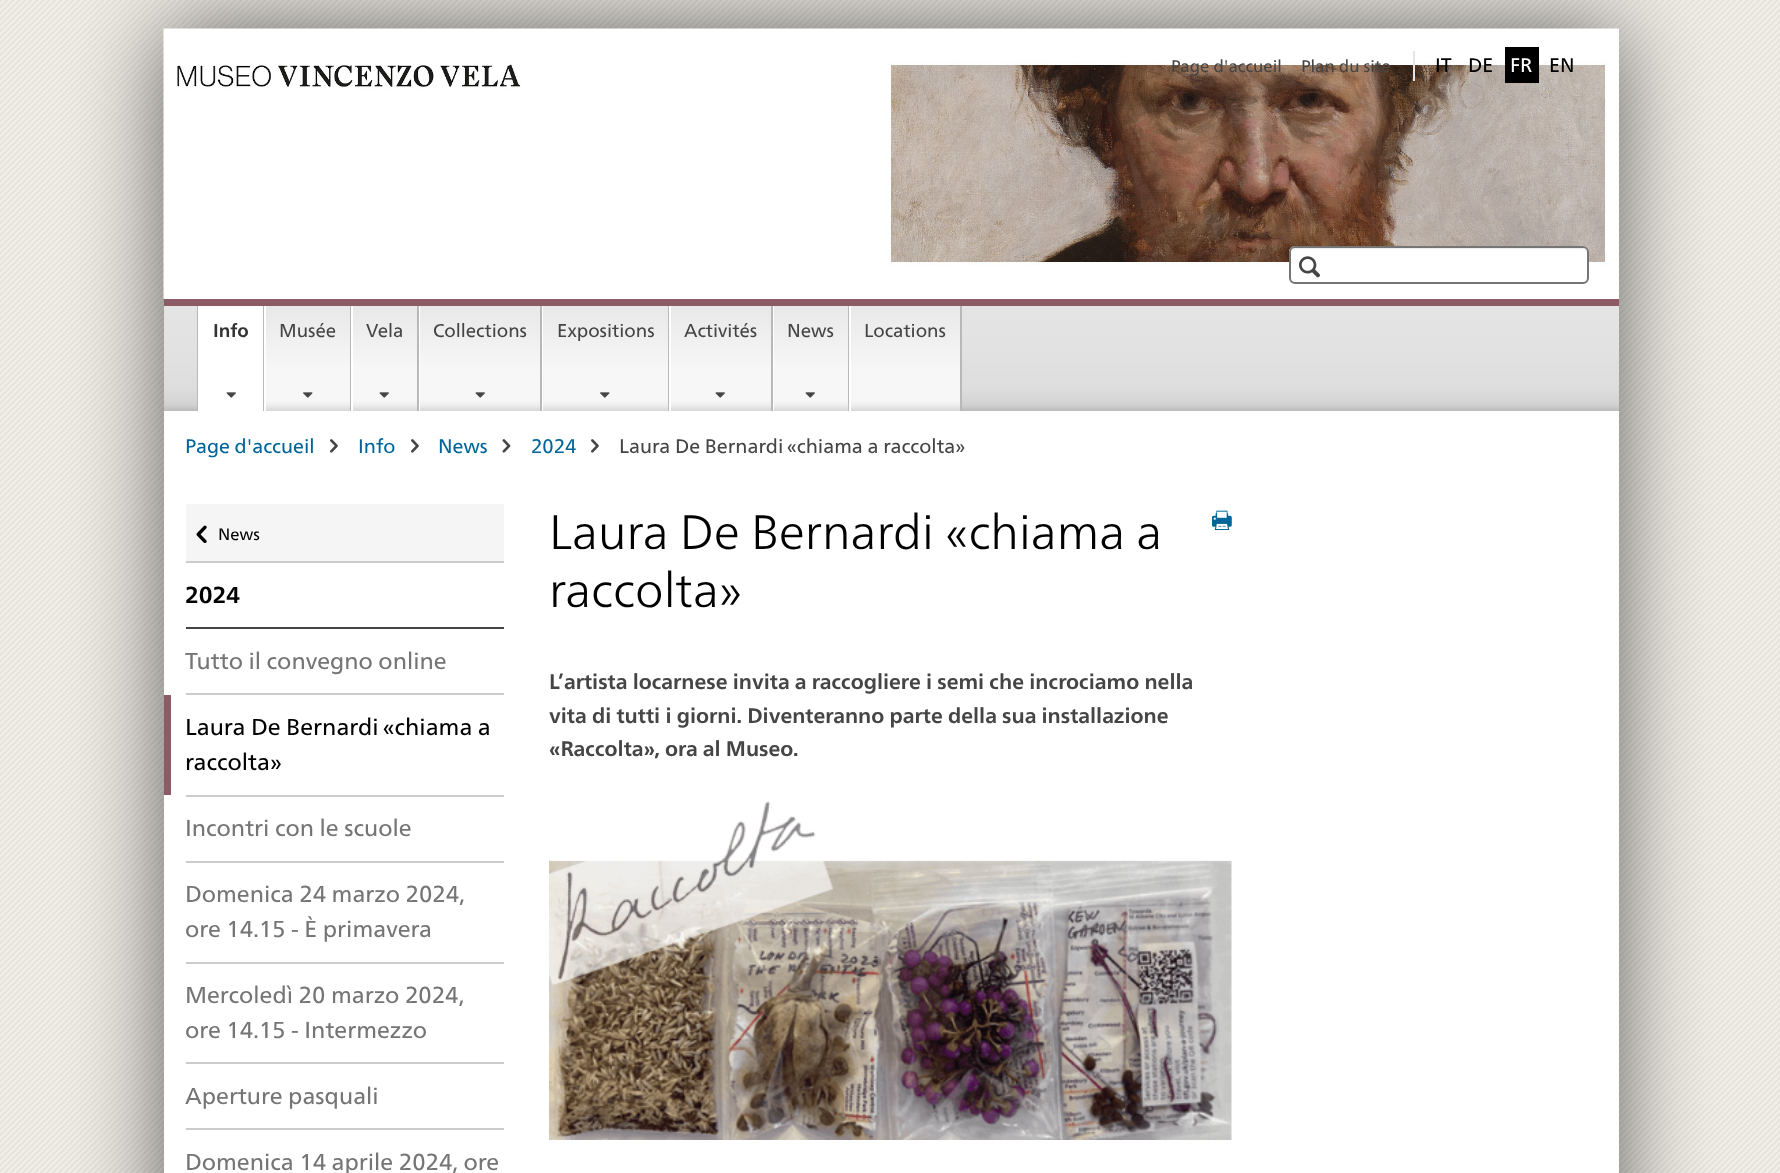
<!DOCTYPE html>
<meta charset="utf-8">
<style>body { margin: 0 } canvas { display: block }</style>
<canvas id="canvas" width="1780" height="1173"></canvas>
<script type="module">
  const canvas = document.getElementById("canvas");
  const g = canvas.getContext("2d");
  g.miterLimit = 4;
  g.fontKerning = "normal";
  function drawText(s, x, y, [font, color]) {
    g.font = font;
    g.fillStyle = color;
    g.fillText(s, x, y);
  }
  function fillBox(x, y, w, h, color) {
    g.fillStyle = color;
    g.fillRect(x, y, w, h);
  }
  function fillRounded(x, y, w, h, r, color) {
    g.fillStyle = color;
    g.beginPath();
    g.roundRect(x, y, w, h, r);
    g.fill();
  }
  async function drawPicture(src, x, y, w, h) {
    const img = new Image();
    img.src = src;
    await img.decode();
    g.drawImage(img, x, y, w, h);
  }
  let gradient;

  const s1 = ["16.75px 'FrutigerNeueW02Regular'", "#454545"];
  const s2 = ["19.6px 'FrutigerNeueW02Regular'", "#000000"];
  const s3 = ["19.6px 'FrutigerNeueW02Regular'", "#FFFFFF"];
  const s4 = ["bold 18.5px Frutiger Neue", "#333333"];
  const s5 = ["18.5px 'FrutigerNeueW02Regular'", "#454545"];
  const s6 = ["19.6px 'FrutigerNeueW02Regular'", "#006699"];
  const s7 = ["19.6px 'FrutigerNeueW02Regular'", "#454545"];
  const s8 = ["16.5px 'FrutigerNeueW02Regular'", "#000000"];
  const s9 = ["bold 23.1px Frutiger Neue", "#000000"];
  const s10 = ["23.1px 'FrutigerNeueW02Regular'", "#757575"];
  const s11 = ["23.1px 'FrutigerNeueW02Regular'", "#000000"];
  const s12 = ["300 48.25px Frutiger Neue", "#000000"];
  const s13 = ["bold 21px Frutiger Neue", "#454545"];

  fillBox(0, 0, 1780, 1173, "#FFFFFF");
  await drawPicture("pic1.png", 0, 0, 1780, 1173);
  g.fillStyle = "rgba(0, 0, 0, 0.6)";
  g.filter = "blur(45px)";
  g.beginPath();
  g.rect(164, 29, 1455, 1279);
  g.fill();
  g.filter = "none";
  fillBox(164, 29, 1455, 1144, "#FFFFFF");
  await drawPicture("pic2.png", 163, 28, 1456, 271);
  drawText("Page d'accueil", 1171, 72, s1);
  drawText("Plan du site", 1301, 72, s1);
  fillBox(1413, 51, 2, 30, "#E5E5E5");
  drawText("IT", 1435, 72, s2);
  drawText("DE", 1468, 72, s2);
  fillBox(1505, 47, 34, 36, "#000000");
  drawText("FR", 1510, 72, s3);
  drawText("EN", 1549, 72, s2);
  fillRounded(1289, 246, 300, 38, 6, "#FFFFFF");
  g.fillStyle = "#ECECEC";
  g.beginPath();
  g.moveTo(1294, 249);
  g.lineTo(1582, 249);
  g.bezierCurveTo(1585, 249, 1587, 251, 1587, 254);
  g.lineTo(1587, 253);
  g.bezierCurveTo(1587, 250, 1585, 248, 1582, 248);
  g.lineTo(1295, 248);
  g.bezierCurveTo(1292, 248, 1290, 250, 1290, 253);
  g.lineTo(1290, 254);
  g.bezierCurveTo(1290, 251, 1292, 249, 1294, 249);
  g.closePath();
  g.fill();
  g.beginPath();
  g.roundRect(1290, 247, 298, 36, 5);
  g.strokeStyle = "#757575";
  g.lineWidth = 2;
  g.stroke();
  await drawPicture("pic3.png", 1299, 256, 21, 22);
  gradient = g.createLinearGradient(891, 306, 891, 411);
  gradient.addColorStop(0, "#E4E4E4");
  gradient.addColorStop(0.39, "#E2E2E2");
  gradient.addColorStop(0.79, "#DDDDDD");
  gradient.addColorStop(0.91, "#D5D5D5");
  gradient.addColorStop(0.95, "#CFCFCF");
  gradient.addColorStop(0.99, "#BEBEBE");
  g.fillStyle = gradient;
  g.fillRect(164, 306, 1455, 105);
  fillBox(164, 299, 1455, 7, "#8C5B66");
  fillBox(197, 306, 1, 105, "#B8B8B8");
  fillBox(263, 306, 1, 105, "#B8B8B8");
  fillBox(198, 306, 65, 105, "#FFFFFF");
  drawText("Info", 213, 337, s4);
  await drawPicture("pic4.png", 226, 392, 10, 6);
  fillBox(350, 306, 1, 105, "#B8B8B8");
  fillBox(264, 306, 2, 105, "#FFFFFF");
  gradient = g.createLinearGradient(308, 306, 308, 411);
  gradient.addColorStop(0, "#E8E8E8");
  gradient.addColorStop(0.61, "#F7F7F7");
  gradient.addColorStop(0.89, "#F7F7F7");
  gradient.addColorStop(0.91, "#F5F5F5");
  gradient.addColorStop(0.95, "#ECECEC");
  gradient.addColorStop(1, "#D7D7D7");
  g.fillStyle = gradient;
  g.fillRect(266, 306, 84, 105);
  drawText("Musée", 279, 337, s5);
  await drawPicture("pic5.png", 303, 392, 10, 6);
  fillBox(417, 306, 2, 105, "#B8B8B8");
  fillBox(351, 306, 2, 105, "#FFFFFF");
  gradient = g.createLinearGradient(385, 306, 385, 411);
  gradient.addColorStop(0, "#E8E8E8");
  gradient.addColorStop(0.61, "#F7F7F7");
  gradient.addColorStop(0.89, "#F7F7F7");
  gradient.addColorStop(0.91, "#F5F5F5");
  gradient.addColorStop(0.95, "#ECECEC");
  gradient.addColorStop(1, "#D7D7D7");
  g.fillStyle = gradient;
  g.fillRect(353, 306, 64, 105);
  drawText("Vela", 366, 337, s5);
  await drawPicture("pic6.png", 379, 392, 10, 6);
  fillBox(540, 306, 2, 105, "#B8B8B8");
  fillBox(419, 306, 1, 105, "#FFFFFF");
  gradient = g.createLinearGradient(480, 306, 480, 411);
  gradient.addColorStop(0, "#E8E8E8");
  gradient.addColorStop(0.61, "#F7F7F7");
  gradient.addColorStop(0.89, "#F7F7F7");
  gradient.addColorStop(0.91, "#F5F5F5");
  gradient.addColorStop(0.95, "#ECECEC");
  gradient.addColorStop(1, "#D7D7D7");
  g.fillStyle = gradient;
  g.fillRect(420, 306, 120, 105);
  drawText("Collections", 433, 337, s5);
  await drawPicture("pic6.png", 475, 392, 10, 6);
  fillBox(668, 306, 1, 105, "#B8B8B8");
  fillBox(542, 306, 1, 105, "#FFFFFF");
  gradient = g.createLinearGradient(605, 306, 605, 411);
  gradient.addColorStop(0, "#E8E8E8");
  gradient.addColorStop(0.61, "#F7F7F7");
  gradient.addColorStop(0.89, "#F7F7F7");
  gradient.addColorStop(0.91, "#F5F5F5");
  gradient.addColorStop(0.95, "#ECECEC");
  gradient.addColorStop(1, "#D7D7D7");
  g.fillStyle = gradient;
  g.fillRect(543, 306, 125, 105);
  drawText("Expositions", 557, 337, s5);
  await drawPicture("pic5.png", 600, 392, 10, 6);
  fillBox(771, 306, 2, 105, "#B8B8B8");
  fillBox(669, 306, 2, 105, "#FFFFFF");
  gradient = g.createLinearGradient(721, 306, 721, 411);
  gradient.addColorStop(0, "#E8E8E8");
  gradient.addColorStop(0.61, "#F7F7F7");
  gradient.addColorStop(0.89, "#F7F7F7");
  gradient.addColorStop(0.91, "#F5F5F5");
  gradient.addColorStop(0.95, "#ECECEC");
  gradient.addColorStop(1, "#D7D7D7");
  g.fillStyle = gradient;
  g.fillRect(671, 306, 100, 105);
  drawText("Activités", 684, 337, s5);
  await drawPicture("pic6.png", 715, 392, 10, 6);
  fillBox(848, 306, 1, 105, "#B8B8B8");
  fillBox(773, 306, 1, 105, "#FFFFFF");
  gradient = g.createLinearGradient(811, 306, 811, 411);
  gradient.addColorStop(0, "#E8E8E8");
  gradient.addColorStop(0.61, "#F7F7F7");
  gradient.addColorStop(0.89, "#F7F7F7");
  gradient.addColorStop(0.91, "#F5F5F5");
  gradient.addColorStop(0.95, "#ECECEC");
  gradient.addColorStop(1, "#D7D7D7");
  g.fillStyle = gradient;
  g.fillRect(774, 306, 74, 105);
  drawText("News", 787, 337, s5);
  await drawPicture("pic6.png", 805, 392, 10, 6);
  fillBox(960, 306, 2, 105, "#B8B8B8");
  fillBox(849, 306, 2, 105, "#FFFFFF");
  gradient = g.createLinearGradient(905, 306, 905, 411);
  gradient.addColorStop(0, "#E8E8E8");
  gradient.addColorStop(0.61, "#F7F7F7");
  gradient.addColorStop(0.89, "#F7F7F7");
  gradient.addColorStop(0.91, "#F5F5F5");
  gradient.addColorStop(0.95, "#ECECEC");
  gradient.addColorStop(1, "#D7D7D7");
  g.fillStyle = gradient;
  g.fillRect(851, 306, 109, 105);
  drawText("Locations", 864, 337, s5);
  drawText("Page d'accueil", 185, 453, s6);
  await drawPicture("pic7.png", 330, 439, 8, 14);
  drawText("Info", 358, 453, s6);
  await drawPicture("pic7.png", 411, 439, 8, 14);
  drawText("News", 438, 453, s6);
  await drawPicture("pic8.png", 502, 439, 9, 14);
  drawText("2024", 531, 453, s6);
  await drawPicture("pic7.png", 591, 439, 8, 14);
  drawText("Laura De Bernardi «chiama a raccolta»", 619, 453, s7);
  fillBox(186, 504, 318, 57, "#F5F5F5");
  fillBox(186, 561, 318, 2, "#CCCCCC");
  await drawPicture("pic9.png", 196, 525, 11, 18);
  drawText("News", 218, 540, s8);
  fillBox(186, 627, 318, 2, "#454545");
  drawText("2024", 185, 603, s9);
  fillBox(186, 693, 318, 2, "#CCCCCC");
  drawText("Tutto il convegno online", 185, 669, s10);
  fillBox(186, 795, 318, 2, "#CCCCCC");
  fillBox(164, 695, 7, 100, "#8C5B66");
  drawText("Laura De Bernardi «chiama a", 185, 735, s11);
  drawText("raccolta»", 185, 770, s11);
  fillBox(186, 861, 318, 2, "#CCCCCC");
  drawText("Incontri con le scuole", 185, 836, s10);
  fillBox(186, 962, 318, 2, "#CCCCCC");
  drawText("Domenica 24 marzo 2024,", 185, 902, s10);
  drawText("ore 14.15 - È primavera", 185, 937, s10);
  fillBox(186, 1062, 318, 2, "#CCCCCC");
  drawText("Mercoledì 20 marzo 2024,", 185, 1003, s10);
  drawText("ore 14.15 - Intermezzo", 185, 1038, s10);
  fillBox(186, 1128, 318, 2, "#CCCCCC");
  drawText("Aperture pasquali", 185, 1104, s10);
  drawText("Domenica 14 aprile 2024, ore", 185, 1170, s10);
  drawText("Laura De Bernardi «chiama a", 549, 549, s12);
  drawText("raccolta»", 549, 607, s12);
  await drawPicture("pic10.png", 1212, 510, 20, 20);
  drawText("L’artista locarnese invita a raccogliere i semi che incrociamo nella", 549, 689, s13);
  drawText("vita di tutti i giorni. Diventeranno parte della sua installazione", 549, 723, s13);
  drawText("«Raccolta», ora al Museo.", 549, 756, s13);
  await drawPicture("pic11.png", 549, 800, 683, 340);
</script>
